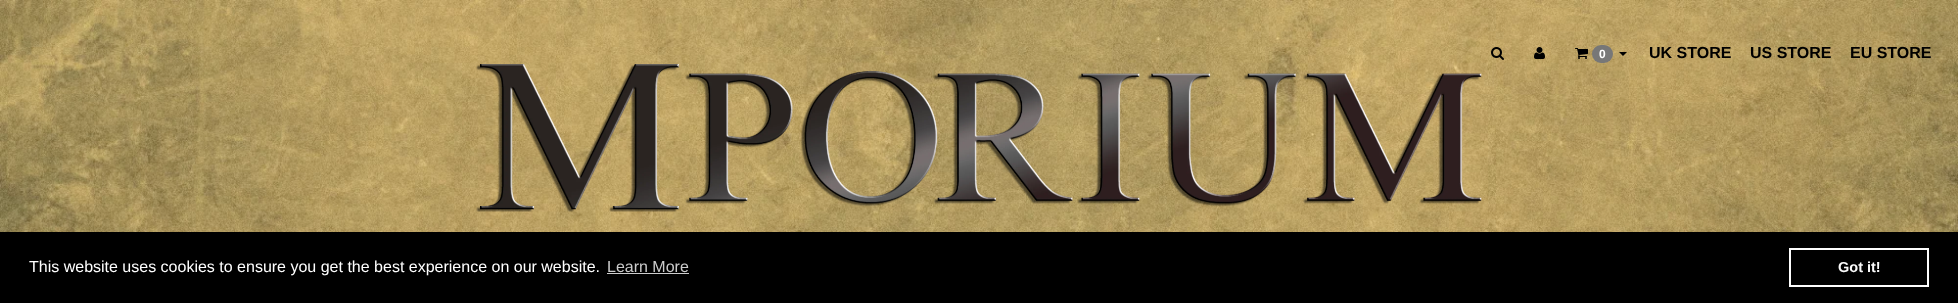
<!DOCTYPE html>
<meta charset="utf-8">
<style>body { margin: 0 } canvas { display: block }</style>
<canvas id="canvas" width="1958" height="303"></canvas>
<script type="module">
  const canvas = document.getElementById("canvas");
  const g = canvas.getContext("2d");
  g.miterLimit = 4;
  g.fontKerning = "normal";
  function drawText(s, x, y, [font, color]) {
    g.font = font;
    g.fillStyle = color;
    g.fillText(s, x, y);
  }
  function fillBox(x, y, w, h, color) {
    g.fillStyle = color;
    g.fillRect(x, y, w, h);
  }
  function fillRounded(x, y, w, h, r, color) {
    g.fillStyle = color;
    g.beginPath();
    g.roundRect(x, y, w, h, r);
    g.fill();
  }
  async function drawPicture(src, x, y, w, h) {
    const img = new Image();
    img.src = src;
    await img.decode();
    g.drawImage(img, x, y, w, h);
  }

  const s1 = ["bold 12px Liberation Sans", "#FFFFFF"];
  const s2 = ["bold 16px Liberation Sans", "#000000"];
  const s3 = ["16px Liberation Sans", "#FFFFFF"];
  const s4 = ["16px Liberation Sans", "#CCCCCC"];
  const s5 = ["bold 14.5px Liberation Sans", "#F9F9F9"];

  fillBox(0, 0, 1958, 303, "#FFFFFF");
  await drawPicture("pic1.png", 0, 0, 1958, 232);
  await drawPicture("pic2.png", 1491, 47, 13, 13);
  await drawPicture("pic3.png", 1534, 47, 11, 12);
  await drawPicture("pic4.png", 1575, 48, 13, 11);
  fillRounded(1592, 45, 21, 18, 9, "#777777");
  drawText("0", 1599, 58, s1);
  g.fillStyle = "#000000";
  g.beginPath();
  g.moveTo(1619, 52);
  g.lineTo(1627, 52);
  g.lineTo(1623, 56);
  g.closePath();
  g.fill();
  drawText("UK STORE", 1649, 58, s2);
  drawText("US STORE", 1750, 58, s2);
  drawText("EU STORE", 1850, 58, s2);
  await drawPicture("pic5.png", 476, 64, 1006, 148);
  fillBox(0, 232, 1958, 71, "#000000");
  drawText("This website uses cookies to ensure you get the best experience on our website.", 29, 272, s3);
  drawText("Learn More", 607, 272, s4);
  fillBox(607, 273, 82, 1, "#CCCCCC");
  g.strokeStyle = "#FDFDFD";
  g.lineWidth = 2;
  g.strokeRect(1790, 249, 138, 37);
  drawText("Got it!", 1838, 272, s5);
</script>
